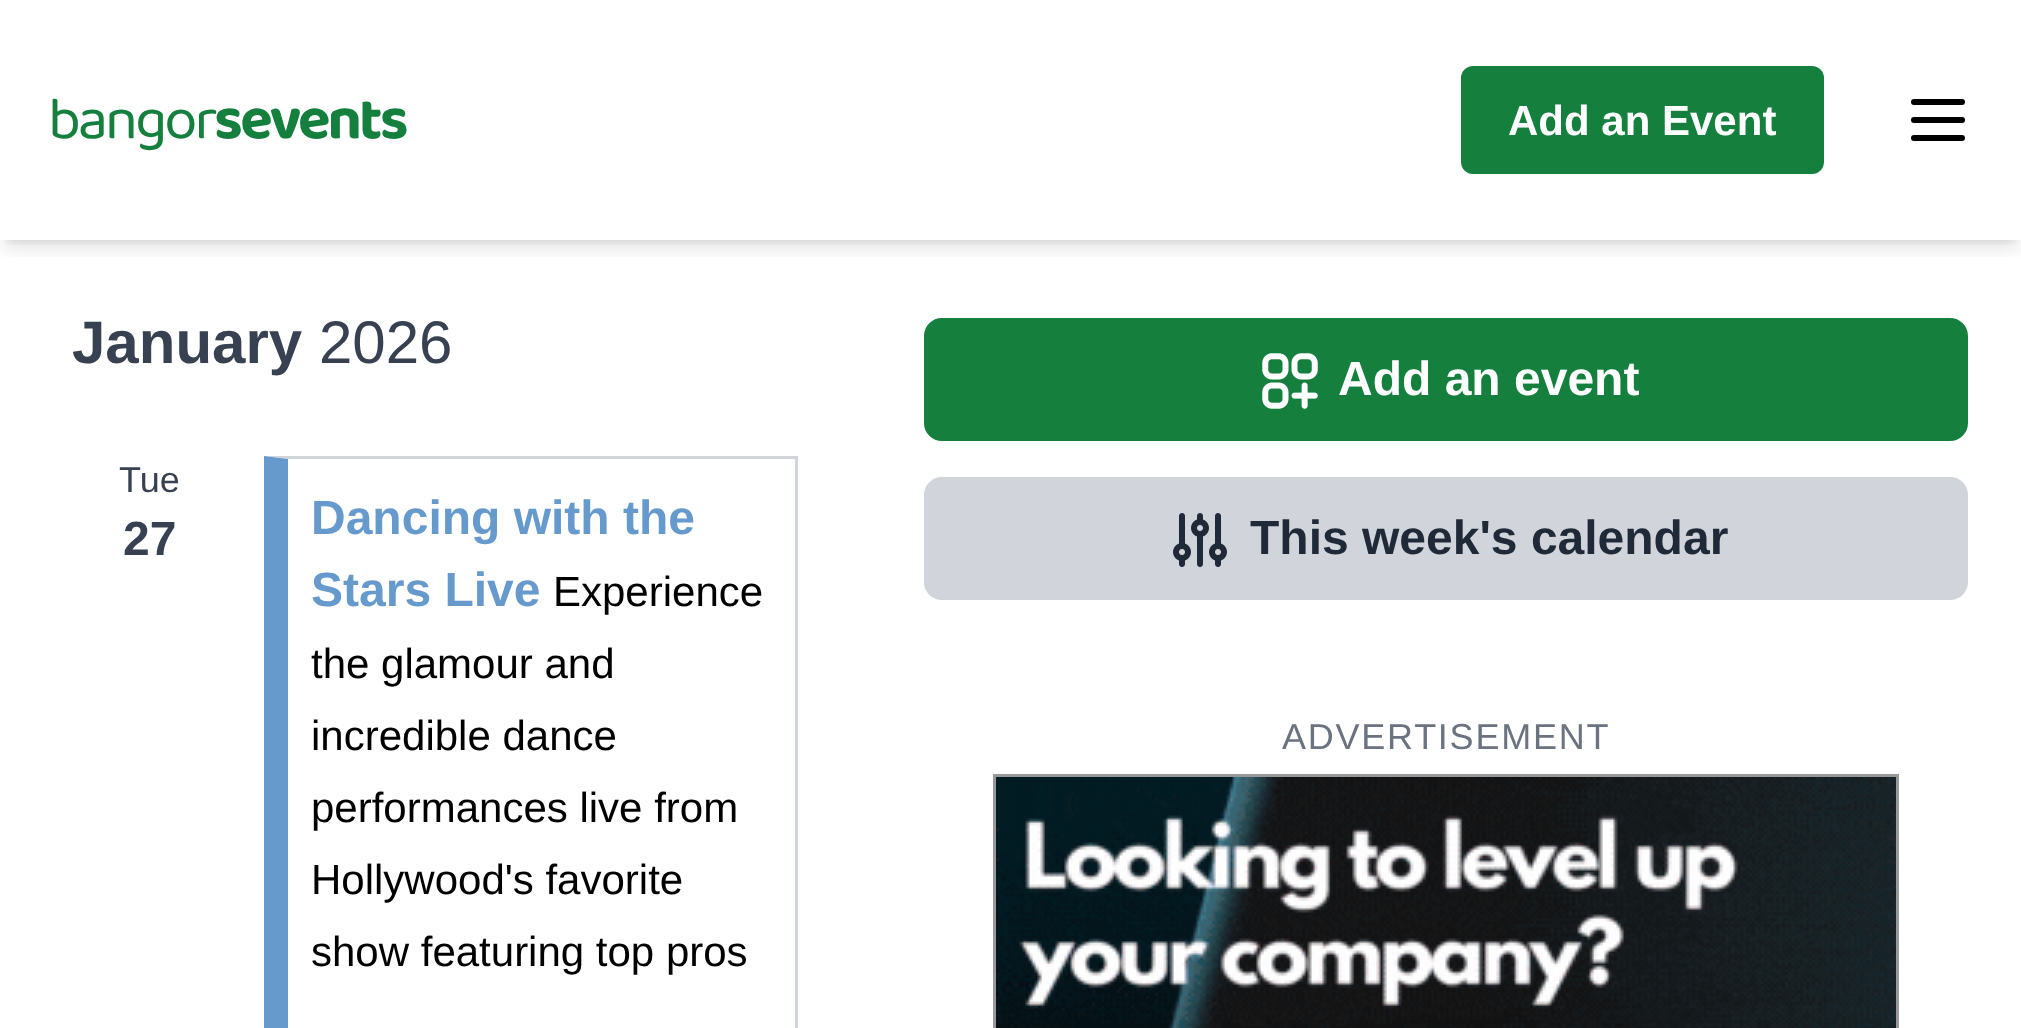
<!DOCTYPE html>
<meta charset="utf-8">
<style>body { margin: 0 } canvas { display: block }</style>
<canvas id="canvas" width="2021" height="1028"></canvas>
<script type="module">
  const canvas = document.getElementById("canvas");
  const g = canvas.getContext("2d");
  g.miterLimit = 4;
  g.fontKerning = "normal";
  function drawText(s, x, y, [font, color]) {
    g.font = font;
    g.fillStyle = color;
    g.fillText(s, x, y);
  }
  function fillBox(x, y, w, h, color) {
    g.fillStyle = color;
    g.fillRect(x, y, w, h);
  }
  async function drawPicture(src, x, y, w, h) {
    const img = new Image();
    img.src = src;
    await img.decode();
    g.drawImage(img, x, y, w, h);
  }

  const s1 = ["60px 'Baloo 2'", "#15803D"];
  const s2 = ["bold 60px 'Baloo 2'", "#15803D"];
  const s3 = ["bold 42px Liberation Sans", "#FFFFFF"];
  const s4 = ["bold 60px Liberation Sans", "#374151"];
  const s5 = ["60px Liberation Sans", "#374151"];
  const s6 = ["36px Liberation Sans", "#374151"];
  const s7 = ["bold 48px Liberation Sans", "#374151"];
  const s8 = ["bold 48px Liberation Sans", "#6699CC"];
  const s9 = ["42px Liberation Sans", "#000000"];
  const s10 = ["bold 48px Liberation Sans", "#FFFFFF"];
  const s11 = ["bold 48px Liberation Sans", "#1F2937"];
  const s12 = ["36px Liberation Sans", "#6B7280"];

  fillBox(0, 0, 2021, 1028, "#FFFFFF");
  g.save();
  g.beginPath();
  g.rect(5, 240, 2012, 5);
  g.clip();
  g.fillStyle = "rgba(0, 0, 0, 0.1)";
  g.filter = "blur(6px)";
  g.beginPath();
  g.rect(6, 12, 2010, 228);
  g.fill();
  g.filter = "none";
  g.restore();
  g.save();
  g.beginPath();
  g.rect(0, 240, 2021, 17);
  g.clip();
  g.fillStyle = "rgba(0, 0, 0, 0.1)";
  g.filter = "blur(9px)";
  g.beginPath();
  g.rect(3, 15, 2016, 234);
  g.fill();
  g.filter = "none";
  g.restore();
  g.letterSpacing = "-3px";
  drawText("bangor", 48, 138, s1);
  drawText("sevents", 214, 138, s2);
  g.beginPath();
  g.roundRect(1458, 63, 369, 114, 15);
  g.fill();
  g.strokeStyle = "#FFFFFF";
  g.lineWidth = 6;
  g.stroke();
  g.letterSpacing = "0px";
  drawText("Add an Event", 1508, 135, s3);
  g.beginPath();
  g.moveTo(1914, 102);
  g.lineTo(1962, 102);
  g.moveTo(1914, 120);
  g.lineTo(1962, 120);
  g.moveTo(1914, 138);
  g.lineTo(1962, 138);
  g.strokeStyle = "#000000";
  g.lineCap = "round";
  g.lineJoin = "round";
  g.stroke();
  drawText("January", 72, 363, s4);
  drawText("2026", 319, 363, s5);
  drawText("Tue", 119, 492, s6);
  drawText("27", 123, 555, s7);
  g.fillStyle = "#D1D5DB";
  g.beginPath();
  g.moveTo(264, 456);
  g.lineTo(798, 456);
  g.lineTo(795, 459);
  g.lineTo(288, 459);
  g.closePath();
  g.fill();
  fillBox(795, 456, 3, 572, "#D1D5DB");
  g.fillStyle = "#6699CC";
  g.beginPath();
  g.moveTo(264, 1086);
  g.lineTo(264, 456);
  g.lineTo(288, 459);
  g.lineTo(288, 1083);
  g.closePath();
  g.fill();
  drawText("Dancing with the", 311, 534, s8);
  drawText("Stars Live", 311, 606, s8);
  drawText("Experience", 553, 606, s9);
  drawText("the glamour and", 311, 678, s9);
  drawText("incredible dance", 311, 750, s9);
  drawText("performances live from", 311, 822, s9);
  drawText("Hollywood's favorite", 311, 894, s9);
  drawText("show featuring top pros", 311, 966, s9);
  g.fillStyle = "#15803D";
  g.beginPath();
  g.roundRect(921, 315, 1050, 129, 21);
  g.fill();
  g.strokeStyle = "#FFFFFF";
  g.lineJoin = "miter";
  g.stroke();
  await drawPicture("pic1.png", 1262, 353, 56, 56);
  drawText("Add an event", 1338, 395, s10);
  g.fillStyle = "#D1D5DB";
  g.beginPath();
  g.roundRect(921, 474, 1050, 129, 21);
  g.fill();
  g.stroke();
  await drawPicture("pic2.png", 1173, 513, 54, 54);
  drawText("This week's calendar", 1250, 554, s11);
  g.letterSpacing = "1.75px";
  drawText("ADVERTISEMENT", 1282, 749, s12);
  g.strokeStyle = "#999999";
  g.lineWidth = 3;
  g.strokeRect(994.5, 775.5, 903, 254);
  await drawPicture("pic3.png", 996, 777, 900, 251);
</script>
